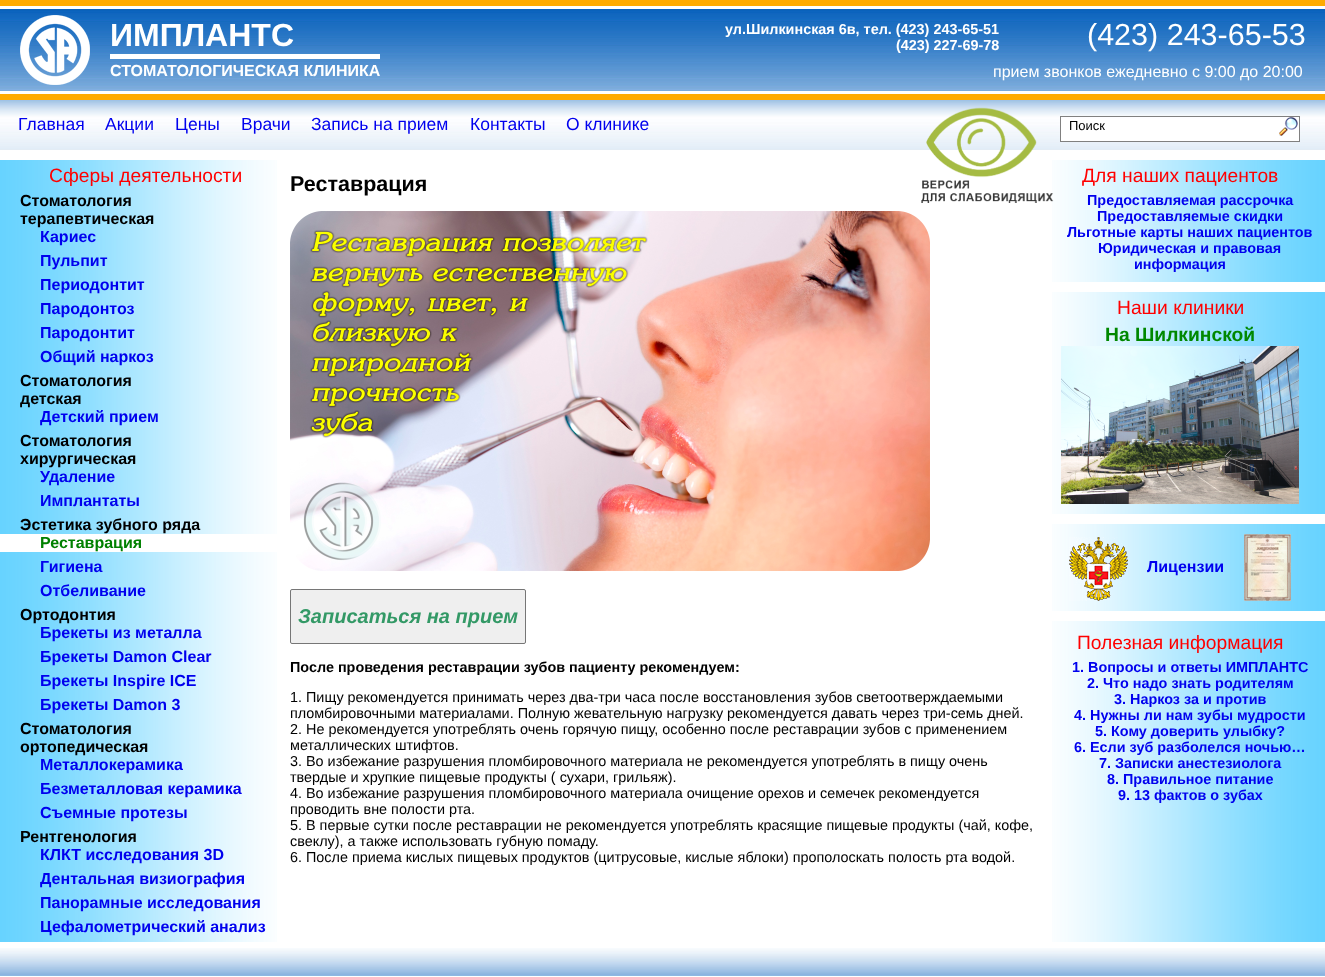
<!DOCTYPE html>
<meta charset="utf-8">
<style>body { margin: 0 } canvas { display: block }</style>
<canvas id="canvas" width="1325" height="977"></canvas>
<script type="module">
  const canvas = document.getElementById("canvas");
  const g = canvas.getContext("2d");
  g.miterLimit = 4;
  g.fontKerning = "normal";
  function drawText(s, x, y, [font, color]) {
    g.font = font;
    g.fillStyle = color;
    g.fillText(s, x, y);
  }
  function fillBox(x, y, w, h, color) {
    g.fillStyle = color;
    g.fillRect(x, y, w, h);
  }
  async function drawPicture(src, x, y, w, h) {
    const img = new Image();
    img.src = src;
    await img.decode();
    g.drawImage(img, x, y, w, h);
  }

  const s1 = ["bold 32px Liberation Sans", "#FFFFFF"];
  const s2 = ["bold 16px Liberation Sans", "#FFFFFF"];
  const s3 = ["bold 14.4px Liberation Sans", "#FFFFFF"];
  const s4 = ["30.5px Liberation Sans", "#FFFFFF"];
  const s5 = ["16px Liberation Sans", "#FFFFFF"];
  const s6 = ["17.5px Liberation Sans", "#0000EE"];
  const s7 = ["13px Liberation Sans", "#000000"];
  const s8 = ["19.25px Liberation Sans", "#FF0000"];
  const s9 = ["bold 16px Liberation Sans", "#000000"];
  const s10 = ["bold 16px Liberation Sans", "#0000EE"];
  const s11 = ["bold 16px Liberation Sans", "#008000"];
  const s12 = ["bold 21.5px Liberation Sans", "#000000"];
  const s13 = ["italic bold 20px Liberation Sans", "#339966"];
  const s14 = ["bold 14.4px Liberation Sans", "#000000"];
  const s15 = ["14.4px Liberation Sans", "#000000"];
  const s16 = ["bold 14.4px Liberation Sans", "#0000EE"];
  const s17 = ["bold 19.25px Liberation Sans", "#008800"];

  fillBox(0, 0, 1325, 977, "#FFFFFF");
  fillBox(0, 0, 1325, 6, "#FFAB00");
  await drawPicture("pic1.png", 0, 9, 1325, 82);
  await drawPicture("pic2.png", 20, 15, 70, 70);
  drawText("ИМПЛАНТС", 110, 46, s1);
  fillBox(110, 54, 270, 5, "#FFFFFF");
  drawText("СТОМАТОЛОГИЧЕСКАЯ КЛИНИКА", 110, 76, s2);
  drawText("ул.Шилкинская 6в, тел. (423) 243-65-51", 725, 34, s3);
  drawText("(423) 227-69-78", 896, 50, s3);
  drawText("(423) 243-65-53", 1087, 45, s4);
  drawText("прием звонков ежедневно с 9:00 до 20:00", 993, 77, s5);
  fillBox(0, 94, 1325, 6, "#FFAB00");
  await drawPicture("pic3.png", 0, 100, 1325, 50);
  drawText("Главная", 18, 130, s6);
  drawText("Акции", 105, 130, s6);
  drawText("Цены", 175, 130, s6);
  drawText("Врачи", 241, 130, s6);
  drawText("Запись на прием", 311, 130, s6);
  drawText("Контакты", 470, 130, s6);
  drawText("О клинике", 566, 130, s6);
  fillBox(1061, 119, 238, 22, "#FFFFFF");
  g.strokeStyle = "#808080";
  g.strokeRect(1060.5, 116.5, 239, 25);
  drawText("Поиск", 1069, 130, s7);
  await drawPicture("pic4.png", 1279, 117, 19, 19);
  await drawPicture("pic5.png", 0, 160, 277, 782);
  drawText("Сферы деятельности", 49, 182, s8);
  drawText("Стоматология", 20, 206, s9);
  drawText("терапевтическая", 20, 224, s9);
  drawText("Кариес", 40, 242, s10);
  drawText("Пульпит", 40, 266, s10);
  drawText("Периодонтит", 40, 290, s10);
  drawText("Пародонтоз", 40, 314, s10);
  drawText("Пародонтит", 40, 338, s10);
  drawText("Общий наркоз", 40, 362, s10);
  drawText("Стоматология", 20, 386, s9);
  drawText("детская", 20, 404, s9);
  drawText("Детский прием", 40, 422, s10);
  drawText("Стоматология", 20, 446, s9);
  drawText("хирургическая", 20, 464, s9);
  drawText("Удаление", 40, 482, s10);
  drawText("Имплантаты", 40, 506, s10);
  drawText("Эстетика зубного ряда", 20, 530, s9);
  fillBox(0, 534, 277, 18, "#FFFFFF");
  drawText("Реставрация", 40, 548, s11);
  drawText("Гигиена", 40, 572, s10);
  drawText("Отбеливание", 40, 596, s10);
  drawText("Ортодонтия", 20, 620, s9);
  drawText("Брекеты из металла", 40, 638, s10);
  drawText("Брекеты Damon Clear", 40, 662, s10);
  drawText("Брекеты Inspire ICE", 40, 686, s10);
  drawText("Брекеты Damon 3", 40, 710, s10);
  drawText("Стоматология", 20, 734, s9);
  drawText("ортопедическая", 20, 752, s9);
  drawText("Металлокерамика", 40, 770, s10);
  drawText("Безметалловая керамика", 40, 794, s10);
  drawText("Съемные протезы", 40, 818, s10);
  drawText("Рентгенология", 20, 842, s9);
  drawText("КЛКТ исследования 3D", 40, 860, s10);
  drawText("Дентальная визиография", 40, 884, s10);
  drawText("Панорамные исследования", 40, 908, s10);
  drawText("Цефалометрический анализ", 40, 932, s10);
  drawText("Реставрация", 290, 191, s12);
  await drawPicture("pic6.png", 290, 211, 640, 360);
  g.fillStyle = "#EFEFEF";
  g.beginPath();
  g.roundRect(290.5, 589.5, 235, 54, 1.5);
  g.fill();
  g.strokeStyle = "#767676";
  g.stroke();
  drawText("Записаться на прием", 298, 623, s13);
  drawText("После проведения реставрации зубов пациенту рекомендуем:", 290, 672, s14);
  drawText("1. Пищу рекомендуется принимать через два-три часа после восстановления зубов светоотверждаемыми", 290, 702, s15);
  drawText("пломбировочными материалами. Полную жевательную нагрузку рекомендуется давать через три-семь дней.", 290, 718, s15);
  drawText("2. Не рекомендуется употреблять очень горячую пищу, особенно после реставрации зубов с применением", 290, 734, s15);
  drawText("металлических штифтов.", 290, 750, s15);
  drawText("3. Во избежание разрушения пломбировочного материала не рекомендуется употреблять в пищу очень", 290, 766, s15);
  drawText("твердые и хрупкие пищевые продукты ( сухари, грильяж).", 290, 782, s15);
  drawText("4. Во избежание разрушения пломбировочного материала очищение орехов и семечек рекомендуется", 290, 798, s15);
  drawText("проводить вне полости рта.", 290, 814, s15);
  drawText("5. В первые сутки после реставрации не рекомендуется употреблять красящие пищевые продукты (чай, кофе,", 290, 830, s15);
  drawText("свеклу), а также использовать губную помаду.", 290, 846, s15);
  drawText("6. После приема кислых пищевых продуктов (цитрусовые, кислые яблоки) прополоскать полость рта водой.", 290, 862, s15);
  await drawPicture("pic7.png", 1052, 160, 273, 782);
  drawText("Для наших пациентов", 1082, 182, s8);
  drawText("Предоставляемая рассрочка", 1087, 205, s16);
  drawText("Предоставляемые скидки", 1097, 221, s16);
  drawText("Льготные карты наших пациентов", 1067, 237, s16);
  drawText("Юридическая и правовая", 1098, 253, s16);
  drawText("информация", 1134, 269, s16);
  fillBox(1052, 282, 273, 10, "#FFFFFF");
  drawText("Наши клиники", 1117, 314, s8);
  drawText("На Шилкинской", 1105, 341, s17);
  await drawPicture("pic8.png", 1061, 346, 238, 158);
  fillBox(1052, 514, 273, 10, "#FFFFFF");
  await drawPicture("pic9.png", 1069, 537, 59, 64);
  drawText("Лицензии", 1147, 572, s10);
  await drawPicture("pic10.png", 1244, 534, 47, 67);
  fillBox(1052, 611, 273, 10, "#FFFFFF");
  drawText("Полезная информация", 1077, 649, s8);
  drawText("1. Вопросы и ответы ИМПЛАНТС", 1072, 672, s16);
  drawText("2. Что надо знать родителям", 1087, 688, s16);
  drawText("3. Наркоз за и против", 1114, 704, s16);
  drawText("4. Нужны ли нам зубы мудрости", 1074, 720, s16);
  drawText("5. Кому доверить улыбку?", 1095, 736, s16);
  drawText("6. Если зуб разболелся ночью…", 1074, 752, s16);
  drawText("7. Записки анестезиолога", 1099, 768, s16);
  drawText("8. Правильное питание", 1107, 784, s16);
  drawText("9. 13 фактов о зубах", 1118, 800, s16);
  await drawPicture("pic11.png", 0, 948, 1325, 28);
  await drawPicture("pic12.png", 921, 107, 133, 96);
</script>
